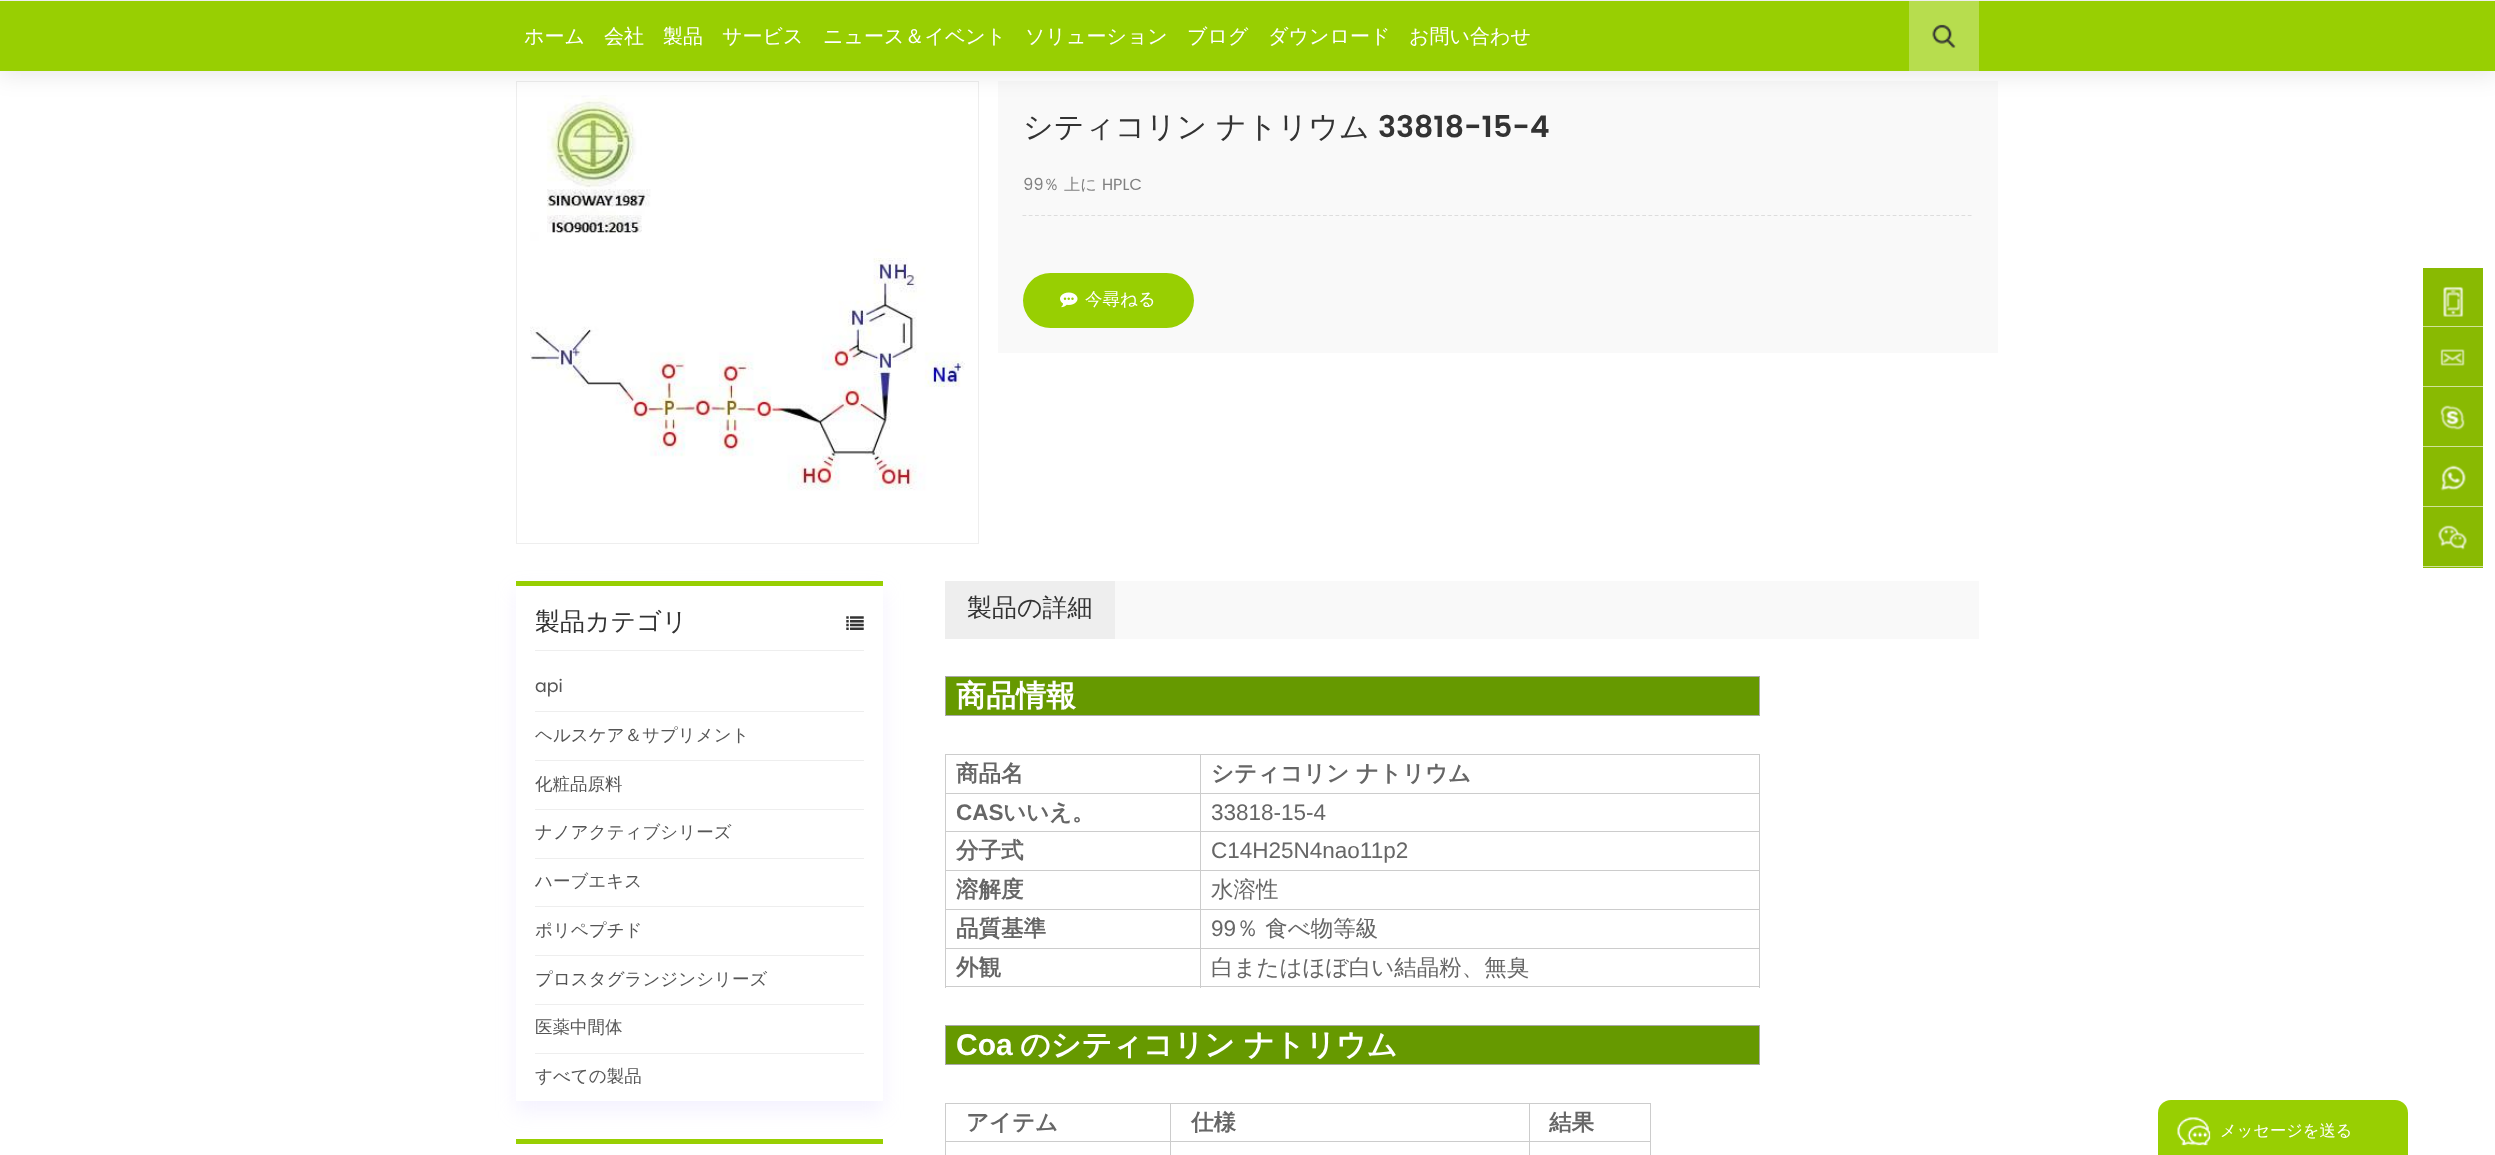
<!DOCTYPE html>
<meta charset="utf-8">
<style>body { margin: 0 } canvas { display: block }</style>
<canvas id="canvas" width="2495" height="1155"></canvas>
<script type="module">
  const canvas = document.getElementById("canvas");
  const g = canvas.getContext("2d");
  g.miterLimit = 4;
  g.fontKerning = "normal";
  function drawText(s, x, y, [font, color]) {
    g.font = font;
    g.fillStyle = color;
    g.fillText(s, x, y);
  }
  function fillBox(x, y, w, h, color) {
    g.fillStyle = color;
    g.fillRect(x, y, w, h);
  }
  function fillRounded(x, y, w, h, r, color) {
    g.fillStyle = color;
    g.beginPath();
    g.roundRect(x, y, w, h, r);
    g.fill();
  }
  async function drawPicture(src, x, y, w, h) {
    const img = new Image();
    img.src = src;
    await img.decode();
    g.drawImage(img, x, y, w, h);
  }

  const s1 = ["500 20px WenQuanYi Zen Hei", "#FFFFFF"];
  const s2 = ["500 30px WenQuanYi Zen Hei", "#333333"];
  const s3 = ["600 30px Poppins", "#333333"];
  const s4 = ["16.25px Poppins", "#808080"];
  const s5 = ["500 16.25px WenQuanYi Zen Hei", "#808080"];
  const s6 = ["500 17.5px WenQuanYi Zen Hei", "#FFFFFF"];
  const s7 = ["500 25px WenQuanYi Zen Hei", "#333333"];
  const s8 = ["17.5px Poppins", "#555555"];
  const s9 = ["500 17.5px WenQuanYi Zen Hei", "#555555"];
  const s10 = ["bold 30px WenQuanYi Zen Hei", "#FFFFFF"];
  const s11 = ["bold 22.5px WenQuanYi Zen Hei", "#666666"];
  const s12 = ["bold 22.5px Liberation Sans", "#666666"];
  const s13 = ["22.5px Liberation Sans", "#666666"];
  const s14 = ["500 22.5px WenQuanYi Zen Hei", "#666666"];
  const s15 = ["bold 30px Liberation Sans", "#FFFFFF"];
  const s16 = ["500 16.25px WenQuanYi Zen Hei", "#FFFFFF"];

  fillBox(0, 0, 2495, 1155, "#FFFFFF");
  g.strokeStyle = "#EEEEEE";
  g.strokeRect(516.5, 81.5, 462, 462);
  await drawPicture("pic2.png", 530, 95, 435, 396);
  fillBox(998, 81, 1000, 272, "#F9F9F9");
  g.fillStyle = "rgba(0, 0, 0, 0.1)";
  g.filter = "blur(12.5px)";
  g.beginPath();
  g.rect(-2, -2, 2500, 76);
  g.fill();
  g.filter = "none";
  fillBox(0, 1, 2495, 70, "#98CF02");
  fillBox(0, 0, 2495, 1, "#EEEEEE");
  drawText("ホーム", 524, 43, s1);
  drawText("会社", 604, 43, s1);
  drawText("製品", 663, 43, s1);
  drawText("サービス", 722, 43, s1);
  drawText("ニュース＆イベント", 823, 43, s1);
  drawText("ソリューション", 1025, 43, s1);
  drawText("ブログ", 1187, 43, s1);
  drawText("ダウンロード", 1268, 43, s1);
  drawText("お問い合わせ", 1409, 43, s1);
  fillBox(1909, 1, 70, 70, "#B7DD4E");
  await drawPicture("pic1.png", 1932, 24, 24, 24);
  drawText("シティコリン ナトリウム", 1023, 137, s2);
  drawText("33818-15-4", 1378, 137, s3);
  g.beginPath();
  g.moveTo(1022.5, 215.5);
  g.lineTo(1972.5, 215.5);
  g.strokeStyle = "#DDDDDD";
  g.lineWidth = 1.2;
  g.setLineDash([3.75, 2.51]);
  g.stroke();
  drawText("99", 1023, 190, s4);
  drawText("％ 上に", 1043, 190, s5);
  drawText("HPLC", 1102, 190, s4);
  fillRounded(1023, 273, 171, 55, 27.5, "#98CF02");
  await drawPicture("pic3.png", 1060, 292, 18, 16);
  drawText("今尋ねる", 1085, 305, s6);
  g.fillStyle = "rgba(200, 183, 255, 0.2)";
  g.filter = "blur(10px)";
  g.beginPath();
  g.rect(516, 591, 367, 520);
  g.fill();
  g.filter = "none";
  fillBox(516, 586, 367, 515, "#FFFFFF");
  fillBox(516, 581, 367, 5, "#98CF02");
  fillBox(535, 650, 329, 1, "#EEEEEE");
  drawText("製品カテゴリ", 535, 630, s7);
  await drawPicture("pic4.png", 846, 616, 18, 14);
  fillBox(535, 711, 329, 1, "#EEEEEE");
  drawText("api", 535, 692, s8);
  fillBox(535, 760, 329, 1, "#EEEEEE");
  drawText("ヘルスケア＆サプリメント", 535, 741, s9);
  fillBox(535, 809, 329, 1, "#EEEEEE");
  drawText("化粧品原料", 535, 790, s9);
  fillBox(535, 858, 329, 1, "#EEEEEE");
  drawText("ナノアクティブシリーズ", 535, 838, s9);
  fillBox(535, 906, 329, 1, "#EEEEEE");
  drawText("ハーブエキス", 535, 887, s9);
  fillBox(535, 955, 329, 1, "#EEEEEE");
  drawText("ポリペプチド", 535, 936, s9);
  fillBox(535, 1004, 329, 1, "#EEEEEE");
  drawText("プロスタグランジンシリーズ", 535, 985, s9);
  fillBox(535, 1053, 329, 1, "#EEEEEE");
  drawText("医薬中間体", 535, 1033, s9);
  drawText("すべての製品", 535, 1082, s9);
  fillBox(516, 1139, 367, 5, "#98CF02");
  fillBox(1115, 581, 864, 58, "#F9F9F9");
  fillBox(945, 581, 170, 58, "#EEEEEE");
  drawText("製品の詳細", 967, 616, s7);
  fillBox(946, 677, 813, 38, "#669900");
  fillBox(945, 676, 815, 1, "#AAAAAA");
  fillBox(1759, 676, 1, 40, "#AAAAAA");
  fillBox(945, 715, 815, 1, "#AAAAAA");
  fillBox(945, 676, 1, 40, "#AAAAAA");
  drawText("商品情報", 956, 706, s10);
  fillBox(1200, 754, 560, 1, "#CCCCCC");
  fillBox(1200, 793, 560, 1, "#CCCCCC");
  fillBox(1200, 831, 560, 1, "#CCCCCC");
  fillBox(1200, 870, 560, 1, "#CCCCCC");
  fillBox(1200, 909, 560, 1, "#CCCCCC");
  fillBox(1200, 948, 560, 1, "#CCCCCC");
  fillBox(1759, 948, 1, 40, "#CCCCCC");
  fillBox(1200, 986, 560, 1, "#CCCCCC");
  fillBox(1200, 948, 1, 40, "#CCCCCC");
  fillBox(945, 948, 256, 1, "#CCCCCC");
  fillBox(1200, 909, 1, 40, "#CCCCCC");
  fillBox(945, 909, 256, 1, "#CCCCCC");
  fillBox(1200, 870, 1, 40, "#CCCCCC");
  fillBox(945, 870, 256, 1, "#CCCCCC");
  fillBox(1200, 831, 1, 40, "#CCCCCC");
  fillBox(945, 831, 256, 1, "#CCCCCC");
  fillBox(1200, 793, 1, 40, "#CCCCCC");
  fillBox(945, 793, 256, 1, "#CCCCCC");
  fillBox(1200, 754, 1, 40, "#CCCCCC");
  fillBox(945, 754, 256, 1, "#CCCCCC");
  fillBox(945, 986, 256, 1, "#CCCCCC");
  fillBox(945, 948, 1, 40, "#CCCCCC");
  fillBox(945, 909, 1, 40, "#CCCCCC");
  fillBox(945, 870, 1, 40, "#CCCCCC");
  fillBox(945, 831, 1, 40, "#CCCCCC");
  fillBox(945, 793, 1, 40, "#CCCCCC");
  fillBox(945, 754, 1, 40, "#CCCCCC");
  drawText("商品名", 956, 781, s11);
  fillBox(1759, 909, 1, 40, "#CCCCCC");
  fillBox(1759, 870, 1, 40, "#CCCCCC");
  fillBox(1759, 831, 1, 40, "#CCCCCC");
  fillBox(1759, 793, 1, 40, "#CCCCCC");
  fillBox(1759, 754, 1, 40, "#CCCCCC");
  drawText("シティコリン ナトリウム", 1211, 781, s11);
  drawText("CAS", 956, 820, s12);
  drawText("いいえ。", 1003, 820, s11);
  drawText("33818-15-4", 1211, 820, s13);
  drawText("分子式", 956, 858, s11);
  drawText("C14H25N4nao11p2", 1211, 858, s13);
  drawText("溶解度", 956, 897, s11);
  drawText("水溶性", 1211, 897, s14);
  drawText("品質基準", 956, 936, s11);
  drawText("99", 1211, 936, s13);
  drawText("％ 食べ物等級", 1236, 936, s14);
  drawText("外観", 956, 975, s11);
  drawText("白またはほぼ白い結晶粉、無臭", 1211, 975, s14);
  fillBox(946, 1026, 813, 38, "#669900");
  fillBox(945, 1025, 815, 1, "#AAAAAA");
  fillBox(1759, 1025, 1, 40, "#AAAAAA");
  fillBox(945, 1064, 815, 1, "#AAAAAA");
  fillBox(945, 1025, 1, 40, "#AAAAAA");
  drawText("Coa", 956, 1055, s15);
  drawText("のシティコリン ナトリウム", 1020, 1055, s10);
  fillBox(1529, 1103, 122, 1, "#CCCCCC");
  fillBox(1529, 1141, 122, 1, "#CCCCCC");
  fillBox(1529, 1141, 1, 14, "#CCCCCC");
  fillBox(1170, 1141, 360, 1, "#CCCCCC");
  fillBox(1529, 1103, 1, 40, "#CCCCCC");
  fillBox(1170, 1103, 360, 1, "#CCCCCC");
  fillBox(1170, 1141, 1, 14, "#CCCCCC");
  fillBox(945, 1141, 226, 1, "#CCCCCC");
  fillBox(1170, 1103, 1, 40, "#CCCCCC");
  fillBox(945, 1103, 226, 1, "#CCCCCC");
  fillBox(945, 1141, 1, 14, "#CCCCCC");
  fillBox(945, 1103, 1, 40, "#CCCCCC");
  drawText("アイテム", 966, 1130, s11);
  drawText("仕様", 1191, 1130, s11);
  fillBox(1650, 1141, 1, 14, "#CCCCCC");
  fillBox(1650, 1103, 1, 40, "#CCCCCC");
  drawText("結果", 1549, 1130, s11);
  fillBox(2423, 268, 60, 300, "#89BA02");
  fillBox(2423, 326, 60, 1, "#D0E39A");
  await drawPicture("pic5.png", 2443, 286, 21, 31);
  fillBox(2423, 386, 60, 1, "#D0E39A");
  await drawPicture("pic6.png", 2440, 349, 25, 17);
  fillBox(2423, 446, 60, 1, "#D0E39A");
  await drawPicture("pic7.png", 2440, 405, 25, 25);
  fillBox(2423, 506, 60, 1, "#D0E39A");
  await drawPicture("pic8.png", 2440, 465, 26, 26);
  fillBox(2423, 566, 60, 1, "#D0E39A");
  await drawPicture("pic9.png", 2438, 525, 29, 25);
  g.fillStyle = "#98CF02";
  g.beginPath();
  g.roundRect(2158, 1100, 250, 55, [13, 13, 0, 0]);
  g.fill();
  await drawPicture("pic10.png", 2177, 1117, 34, 29);
  drawText("メッセージを送る", 2220, 1136, s16);
</script>
